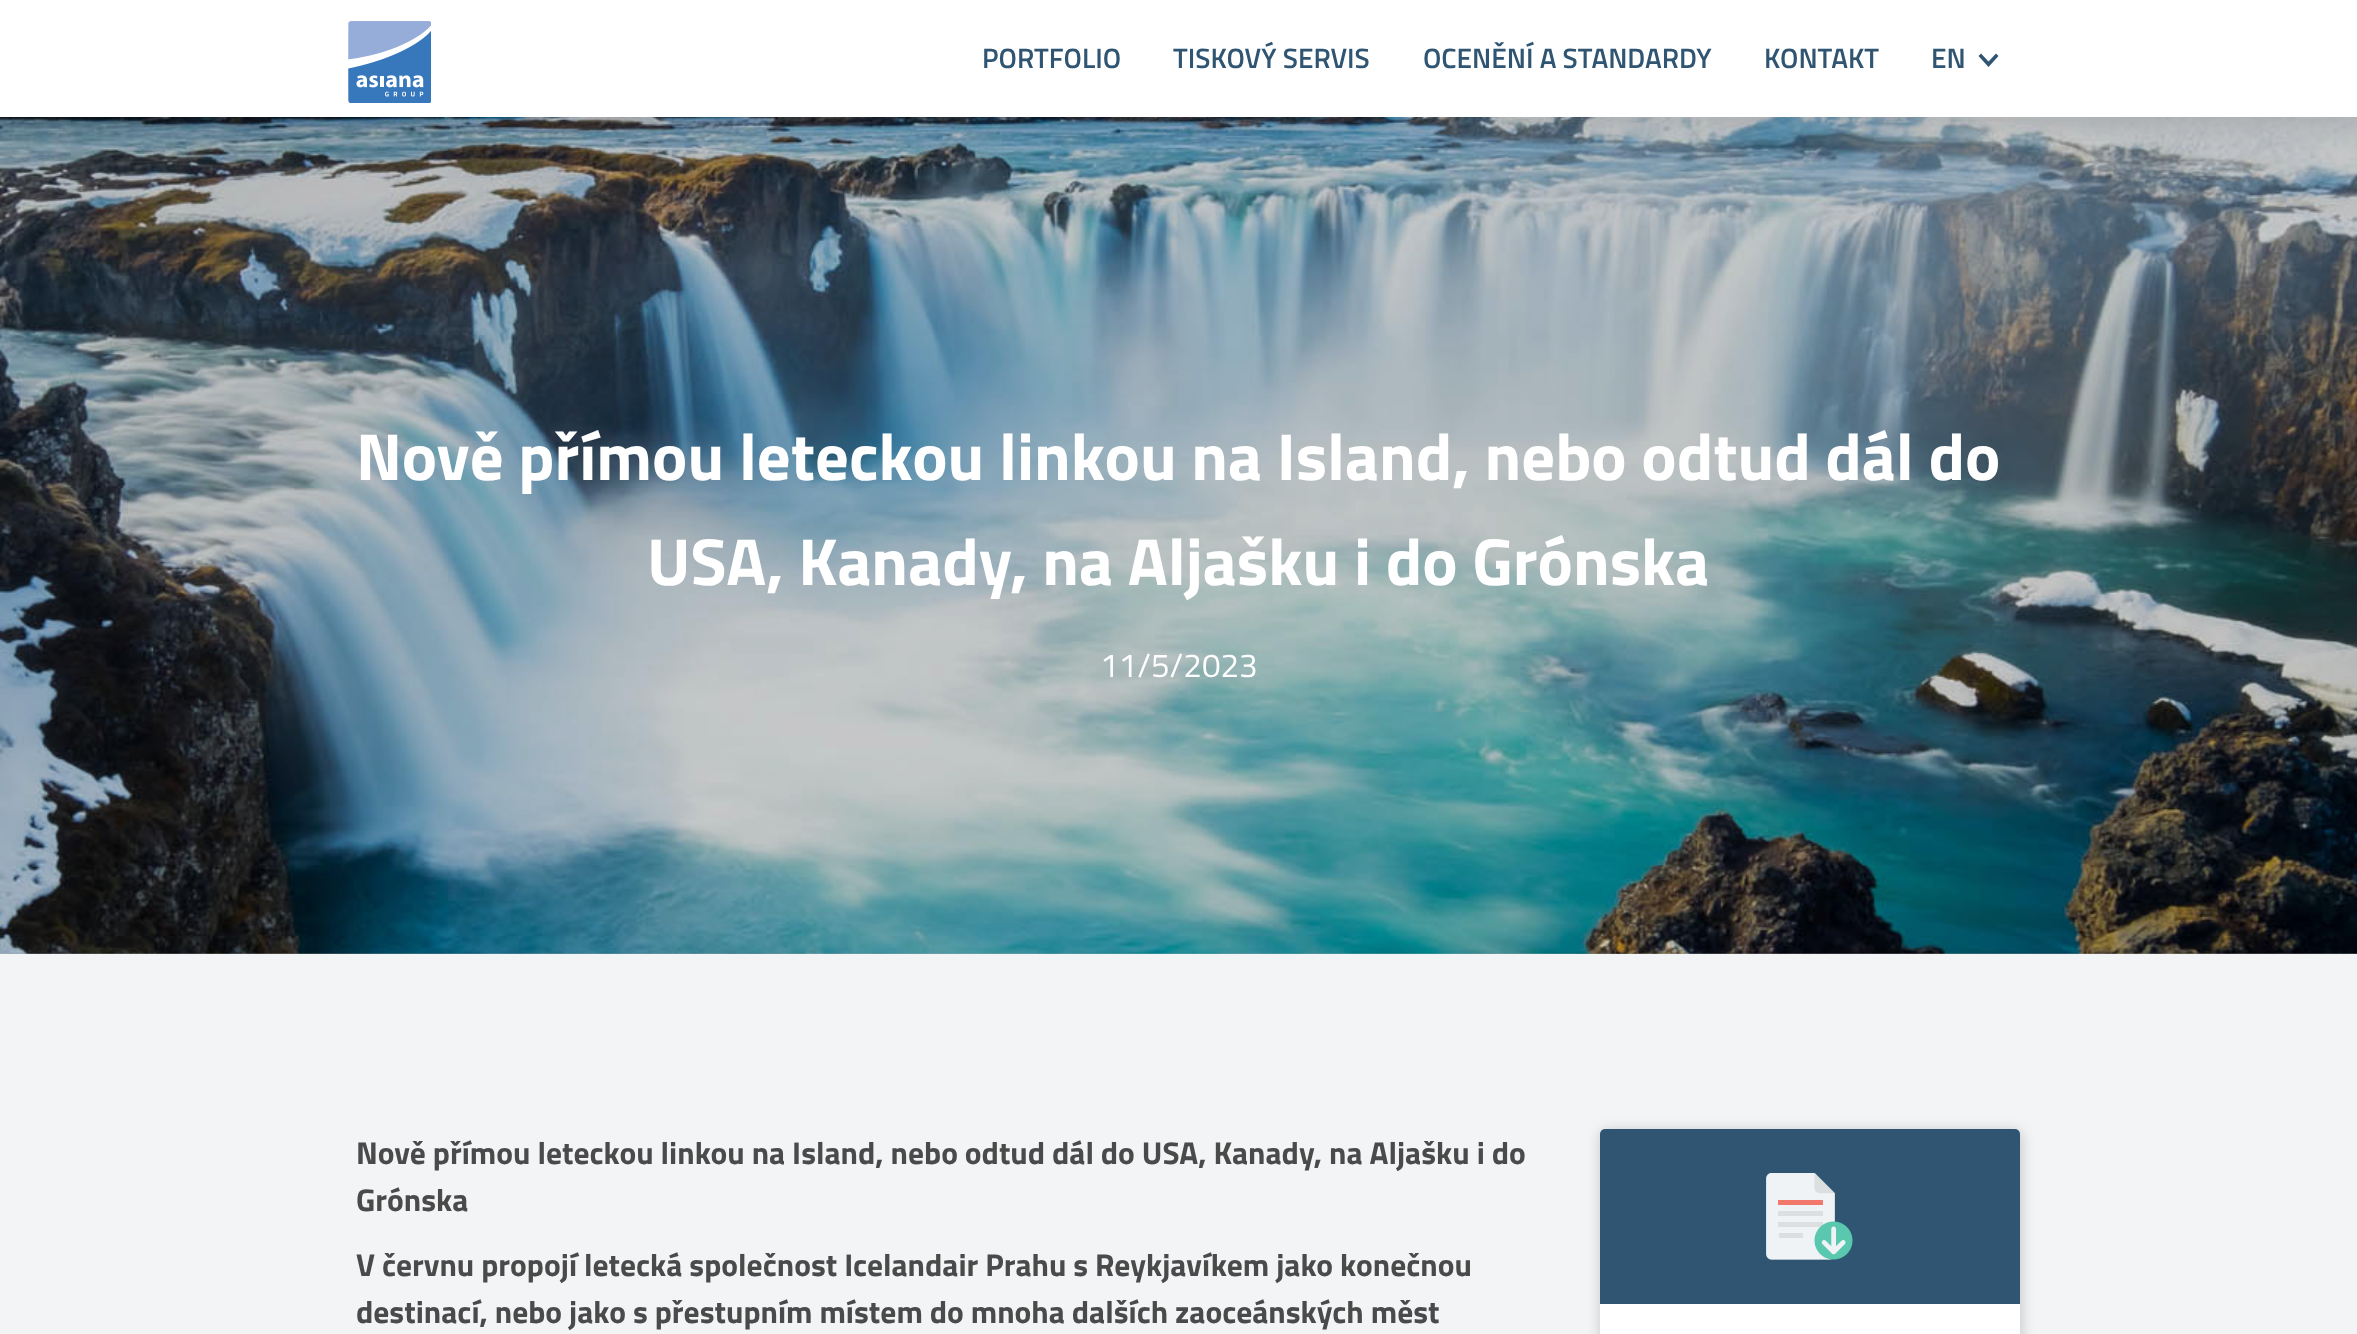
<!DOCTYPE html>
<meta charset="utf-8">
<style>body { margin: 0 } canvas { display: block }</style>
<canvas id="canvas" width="2357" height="1334"></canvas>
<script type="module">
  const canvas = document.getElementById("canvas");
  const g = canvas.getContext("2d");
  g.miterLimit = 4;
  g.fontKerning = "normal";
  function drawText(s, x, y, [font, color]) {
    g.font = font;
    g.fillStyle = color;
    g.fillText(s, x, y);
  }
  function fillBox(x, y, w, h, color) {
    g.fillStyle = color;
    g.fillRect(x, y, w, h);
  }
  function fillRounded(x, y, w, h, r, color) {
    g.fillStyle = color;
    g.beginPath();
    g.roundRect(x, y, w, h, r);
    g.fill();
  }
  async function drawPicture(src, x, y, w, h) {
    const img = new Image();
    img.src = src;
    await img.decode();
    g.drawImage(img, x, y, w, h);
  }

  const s1 = ["600 28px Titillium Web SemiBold", "#2F5572"];
  const s2 = ["bold 66.5px Titillium Web", "#FFFFFF"];
  const s3 = ["33.25px Titillium Web", "#FFFFFF"];
  const s4 = ["bold 31.5px Titillium Web", "#4A4A4A"];

  fillBox(0, 0, 2357, 1334, "#F2F4F5");
  await drawPicture("pic2.png", 0, 953, 2357, 1);
  await drawPicture("pic3.png", 0, 117, 2357, 837);
  g.fillStyle = "rgba(0, 0, 0, 0.1)";
  g.filter = "blur(13px)";
  g.beginPath();
  g.rect(7, 7, 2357, 117);
  g.fill();
  g.filter = "none";
  fillBox(0, 0, 2357, 117, "#FFFFFF");
  await drawPicture("pic1.png", 348, 21, 83, 82);
  drawText("PORTFOLIO", 982, 68, s1);
  drawText("TISKOVÝ SERVIS", 1173, 68, s1);
  drawText("OCENĚNÍ A STANDARDY", 1423, 68, s1);
  drawText("KONTAKT", 1764, 68, s1);
  drawText("EN", 1931, 68, s1);
  g.beginPath();
  g.moveTo(1996, 53.5);
  g.lineTo(1988.5, 61.5);
  g.lineTo(1981, 53.5);
  g.lineTo(1978.5, 56);
  g.lineTo(1988.5, 67);
  g.lineTo(1998.5, 56);
  g.closePath();
  g.fill();
  drawText("Nově přímou leteckou linkou na Island, nebo odtud dál do", 356, 480, s2);
  drawText("USA, Kanady, na Aljašku i do Grónska", 647, 585, s2);
  drawText("11/5/2023", 1100, 677, s3);
  drawText("Nově přímou leteckou linkou na Island, nebo odtud dál do USA, Kanady, na Aljašku i do", 356, 1164, s4);
  drawText("Grónska", 356, 1211, s4);
  drawText("V červnu propojí letecká společnost Icelandair Prahu s Reykjavíkem jako konečnou", 356, 1276, s4);
  drawText("destinací, nebo jako s přestupním místem do mnoha dalších zaoceánských měst", 356, 1323, s4);
  g.fillStyle = "rgba(0, 0, 0, 0.2)";
  g.filter = "blur(7px)";
  g.beginPath();
  g.roundRect(1601, 1131, 420, 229, 5);
  g.fill();
  g.filter = "none";
  fillRounded(1600, 1129, 420, 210, 5, "#FFFFFF");
  g.fillStyle = "#2F5572";
  g.beginPath();
  g.roundRect(1600, 1129, 420, 175, [5, 5, 0, 0]);
  g.fill();
  await drawPicture("pic4.png", 1766, 1173, 87, 87);
</script>
